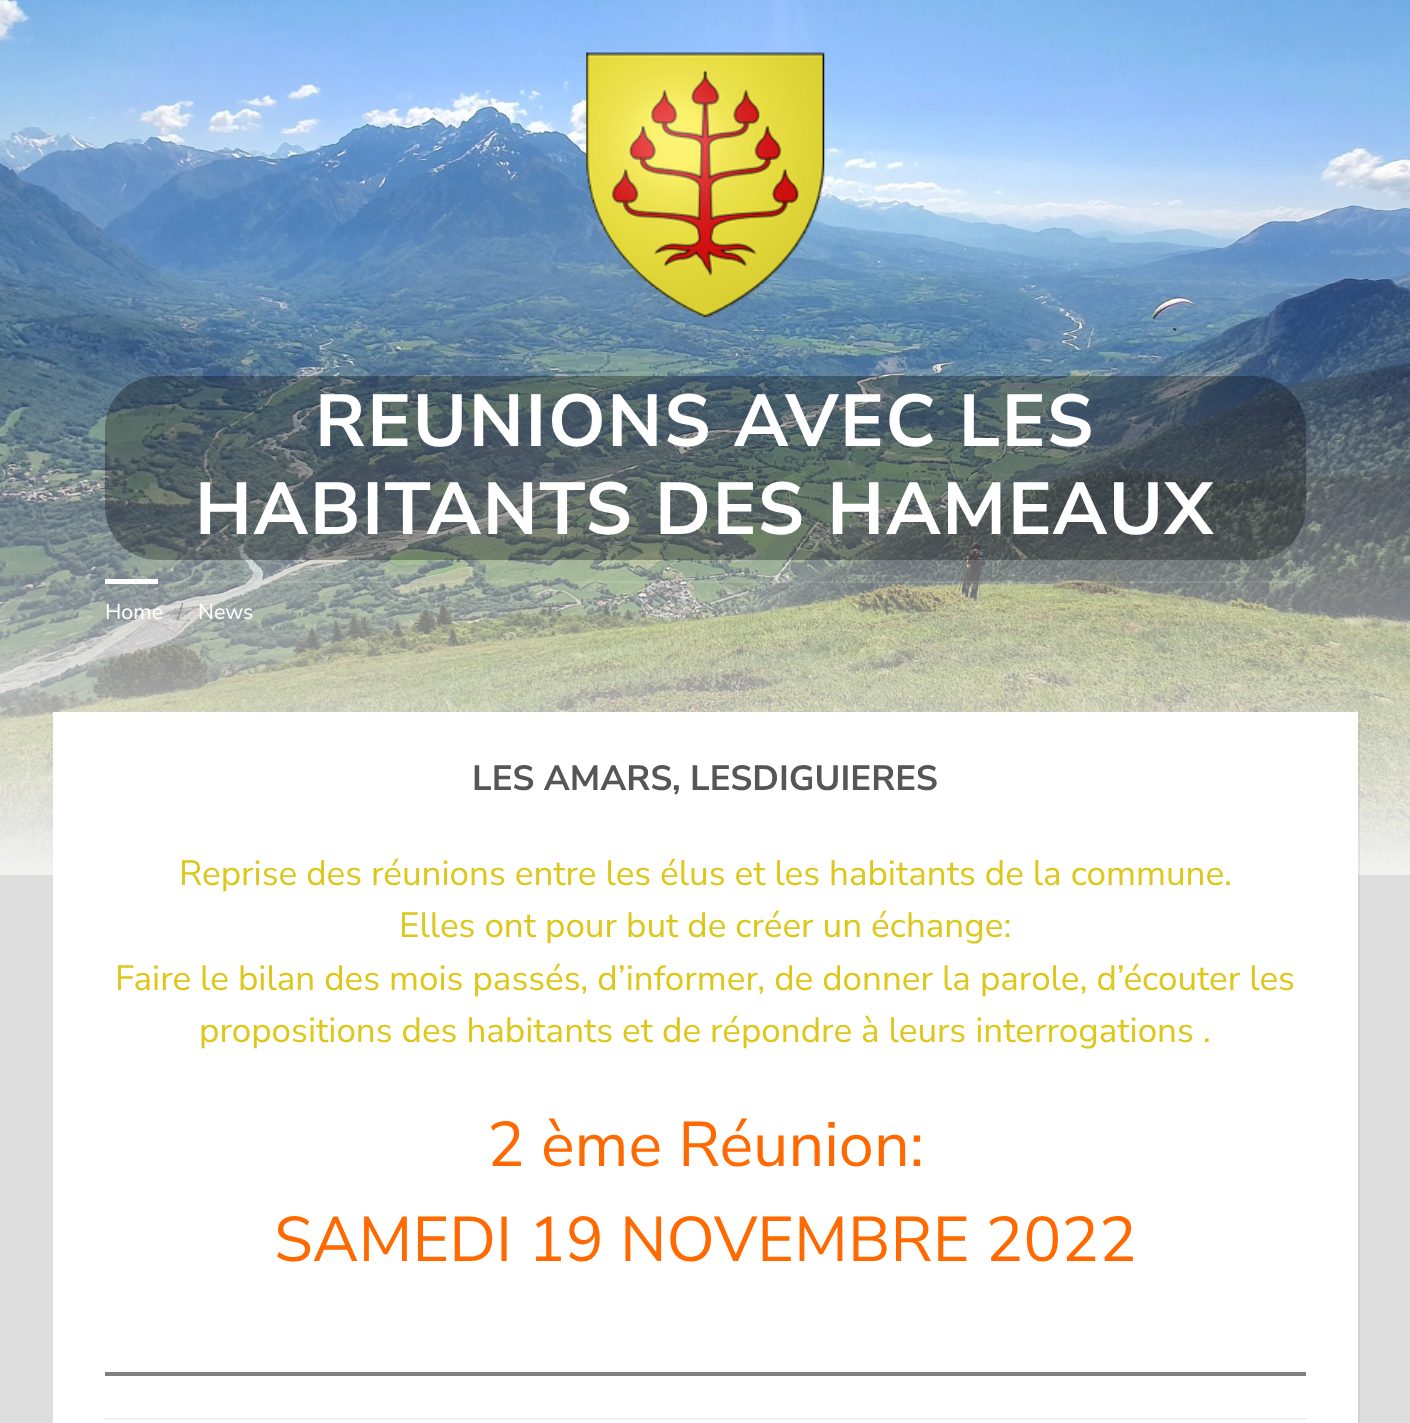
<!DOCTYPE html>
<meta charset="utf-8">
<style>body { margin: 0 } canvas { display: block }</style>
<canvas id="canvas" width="1410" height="1423"></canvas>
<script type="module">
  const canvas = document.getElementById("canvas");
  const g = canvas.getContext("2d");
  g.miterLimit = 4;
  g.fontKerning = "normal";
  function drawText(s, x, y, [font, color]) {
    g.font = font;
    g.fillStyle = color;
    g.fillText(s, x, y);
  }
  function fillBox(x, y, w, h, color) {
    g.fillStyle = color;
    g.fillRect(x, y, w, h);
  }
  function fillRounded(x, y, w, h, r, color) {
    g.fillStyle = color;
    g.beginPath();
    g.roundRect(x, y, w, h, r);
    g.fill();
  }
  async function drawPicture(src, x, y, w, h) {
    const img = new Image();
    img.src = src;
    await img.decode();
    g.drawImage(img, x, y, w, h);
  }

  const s1 = ["bold 73.5px Nunito Sans", "#FFFFFF"];
  const s2 = ["21.5px Nunito Sans", "#FFFFFF"];
  const s3 = ["21px Nunito Sans", "#8A949B"];
  const s4 = ["bold 35px Nunito Sans", "#565656"];
  const s5 = ["35px Nunito Sans", "#DEC71B"];
  const s6 = ["63px Nunito Sans", "#FF6900"];

  fillBox(0, 0, 1410, 1423, "#DEDEDE");
  await drawPicture("pic1.png", 0, 0, 1410, 875);
  await drawPicture("pic2.png", 586, 52, 239, 265);
  fillRounded(105, 376, 1201, 184, 53, "rgba(0, 0, 0, 0.3)");
  g.letterSpacing = "1.75px";
  drawText("REUNIONS AVEC LES", 315, 446, s1);
  drawText("HABITANTS DES HAMEAUX", 195, 534, s1);
  fillBox(158, 581, 1148, 2, "rgba(255, 255, 255, 0.1)");
  fillBox(105, 579, 53, 5, "#FFFFFF");
  g.letterSpacing = "0px";
  drawText("Home", 105, 619, s2);
  drawText("/", 177, 619, s3);
  drawText("News", 198, 619, s2);
  g.fillStyle = "rgba(0, 0, 0, 0.05)";
  g.beginPath();
  g.moveTo(54, 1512);
  g.lineTo(54, 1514);
  g.lineTo(1360, 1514);
  g.lineTo(1360, 714);
  g.lineTo(1358, 714);
  g.lineTo(1358, 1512);
  g.closePath();
  g.fill();
  fillBox(53, 712, 1305, 711, "#FFFFFF");
  drawText("LES AMARS, LESDIGUIERES", 472, 790, s4);
  drawText("Reprise des réunions entre les élus et les habitants de la commune.", 179, 885, s5);
  drawText("Elles ont pour but de créer un échange:", 399, 937, s5);
  drawText("Faire le bilan des mois passés, d’informer, de donner la parole, d’écouter les", 115, 990, s5);
  drawText("propositions des habitants et de répondre à leurs interrogations .", 199, 1042, s5);
  drawText("2 ème Réunion:", 487, 1166, s6);
  drawText("SAMEDI 19 NOVEMBRE 2022", 274, 1261, s6);
  fillBox(105, 1372, 1201, 4, "#808080");
  fillBox(105, 1418, 1201, 2, "#F0F0F0");
</script>
